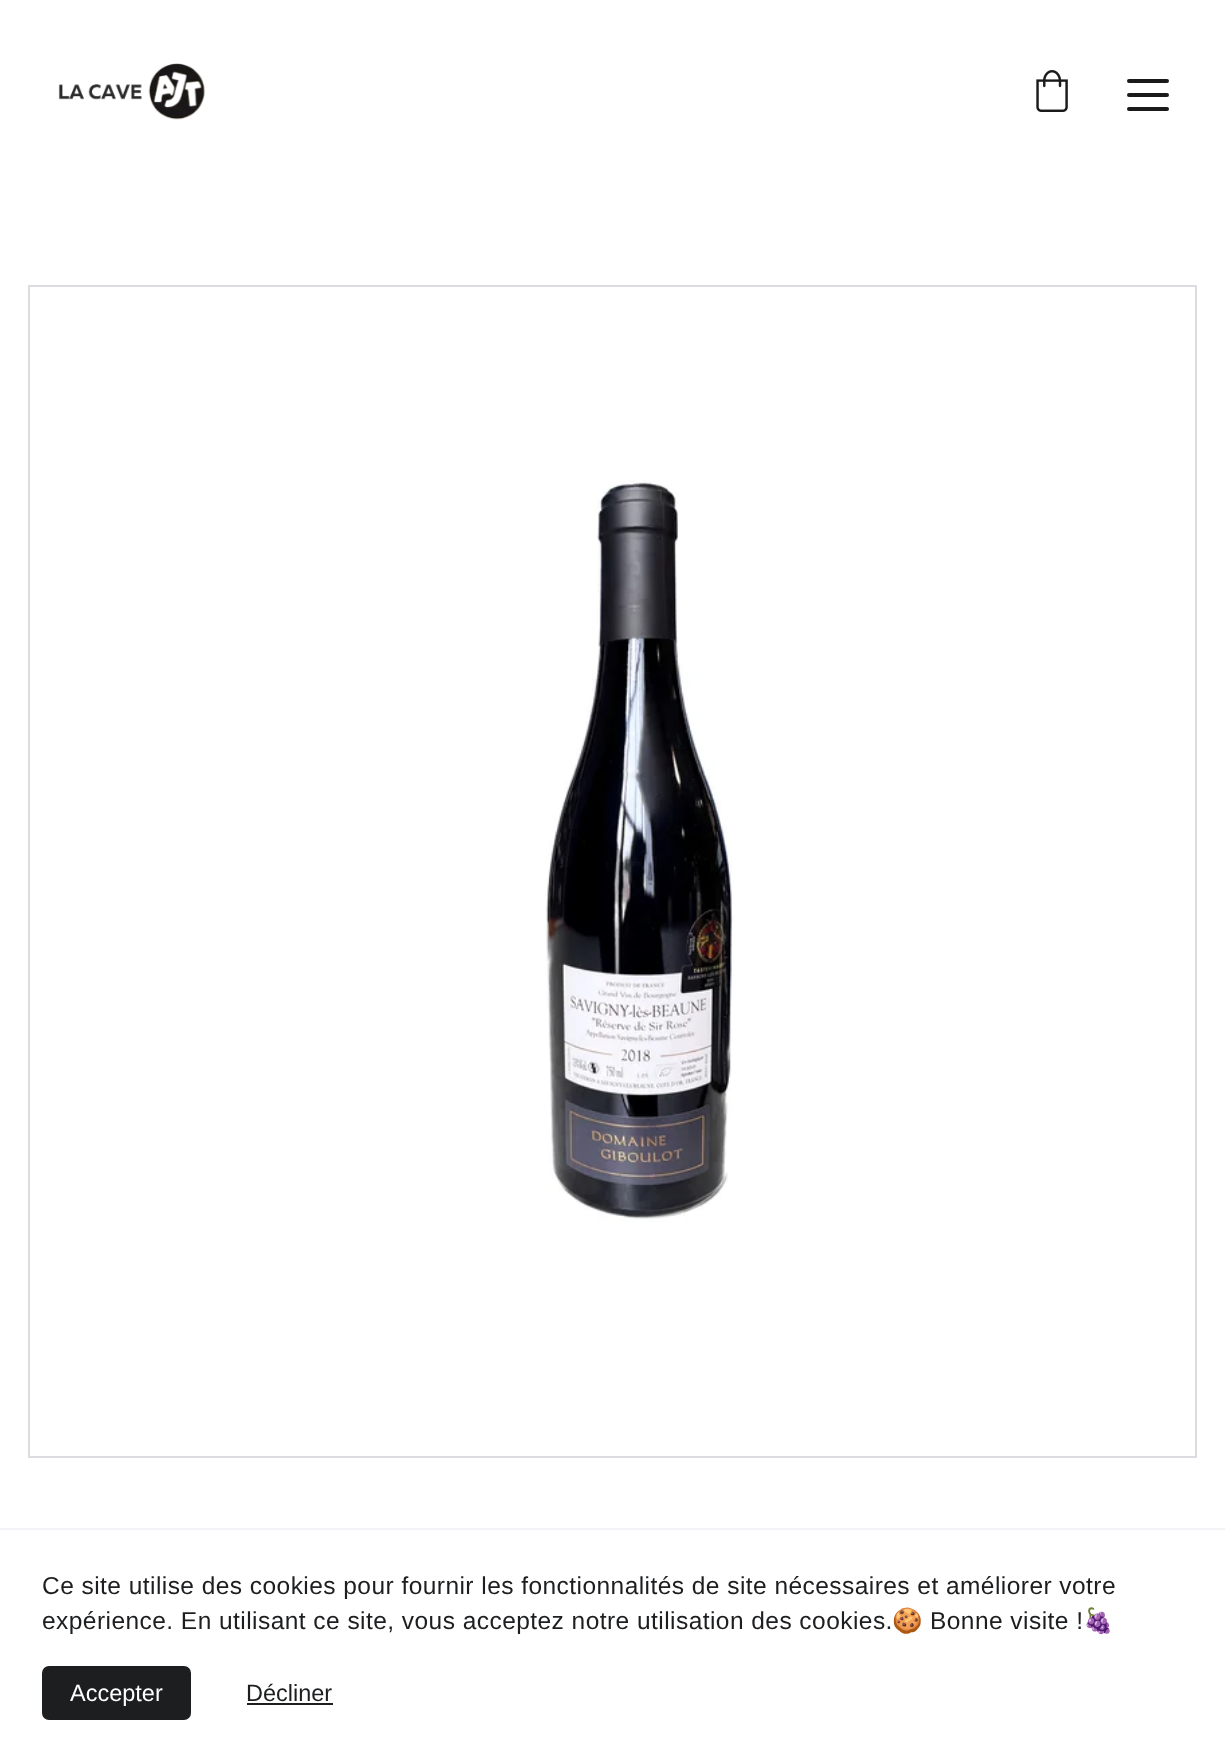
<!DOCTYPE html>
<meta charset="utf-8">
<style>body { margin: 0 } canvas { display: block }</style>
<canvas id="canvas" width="1225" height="1758"></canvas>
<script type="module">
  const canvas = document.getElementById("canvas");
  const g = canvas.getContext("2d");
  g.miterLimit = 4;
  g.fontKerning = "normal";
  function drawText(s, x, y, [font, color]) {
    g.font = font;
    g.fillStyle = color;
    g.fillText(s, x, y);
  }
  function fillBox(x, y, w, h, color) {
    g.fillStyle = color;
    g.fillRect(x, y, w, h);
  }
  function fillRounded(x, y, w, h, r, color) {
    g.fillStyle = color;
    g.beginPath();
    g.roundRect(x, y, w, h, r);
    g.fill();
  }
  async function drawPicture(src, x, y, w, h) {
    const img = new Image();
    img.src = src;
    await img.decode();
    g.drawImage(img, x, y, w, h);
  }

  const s1 = ["24.5px Liberation Sans", "#1D1E20"];
  const s2 = ["24.5px Noto Color Emoji", "#1D1E20"];
  const s3 = ["23.5px Liberation Sans", "#FFFFFF"];
  const s4 = ["23.5px Liberation Sans", "#1D1E20"];

  fillBox(0, 0, 1225, 1758, "#FFFFFF");
  await drawPicture("pic1.png", 58, 63, 147, 57);
  await drawPicture("pic2.png", 1036, 70, 32, 42);
  fillRounded(1127, 79, 42, 4, 2, "#1A1A1A");
  fillRounded(1127, 93, 42, 4, 2, "#1A1A1A");
  fillRounded(1127, 107, 42, 4, 2, "#1A1A1A");
  g.strokeStyle = "#DADCE0";
  g.lineWidth = 2;
  g.strokeRect(29, 286, 1167, 1171);
  await drawPicture("pic3.png", 545, 480, 189, 742);
  fillBox(0, 1528, 1225, 2, "#F2F3F6");
  g.letterSpacing = "0.45px";
  drawText("Ce site utilise des cookies pour fournir les fonctionnalités de site nécessaires et améliorer votre", 42, 1594, s1);
  drawText("expérience. En utilisant ce site, vous acceptez notre utilisation des cookies.", 42, 1629, s1);
  drawText("🍪", 892, 1629, s2);
  drawText("Bonne visite !", 930, 1629, s1);
  drawText("🍇", 1083, 1629, s2);
  fillRounded(42, 1666, 149, 54, 7, "#1D1E20");
  g.letterSpacing = "0px";
  drawText("Accepter", 70, 1701, s3);
  drawText("Décliner", 246, 1701, s4);
  fillBox(247, 1703, 86, 2, "#1D1E20");
</script>
